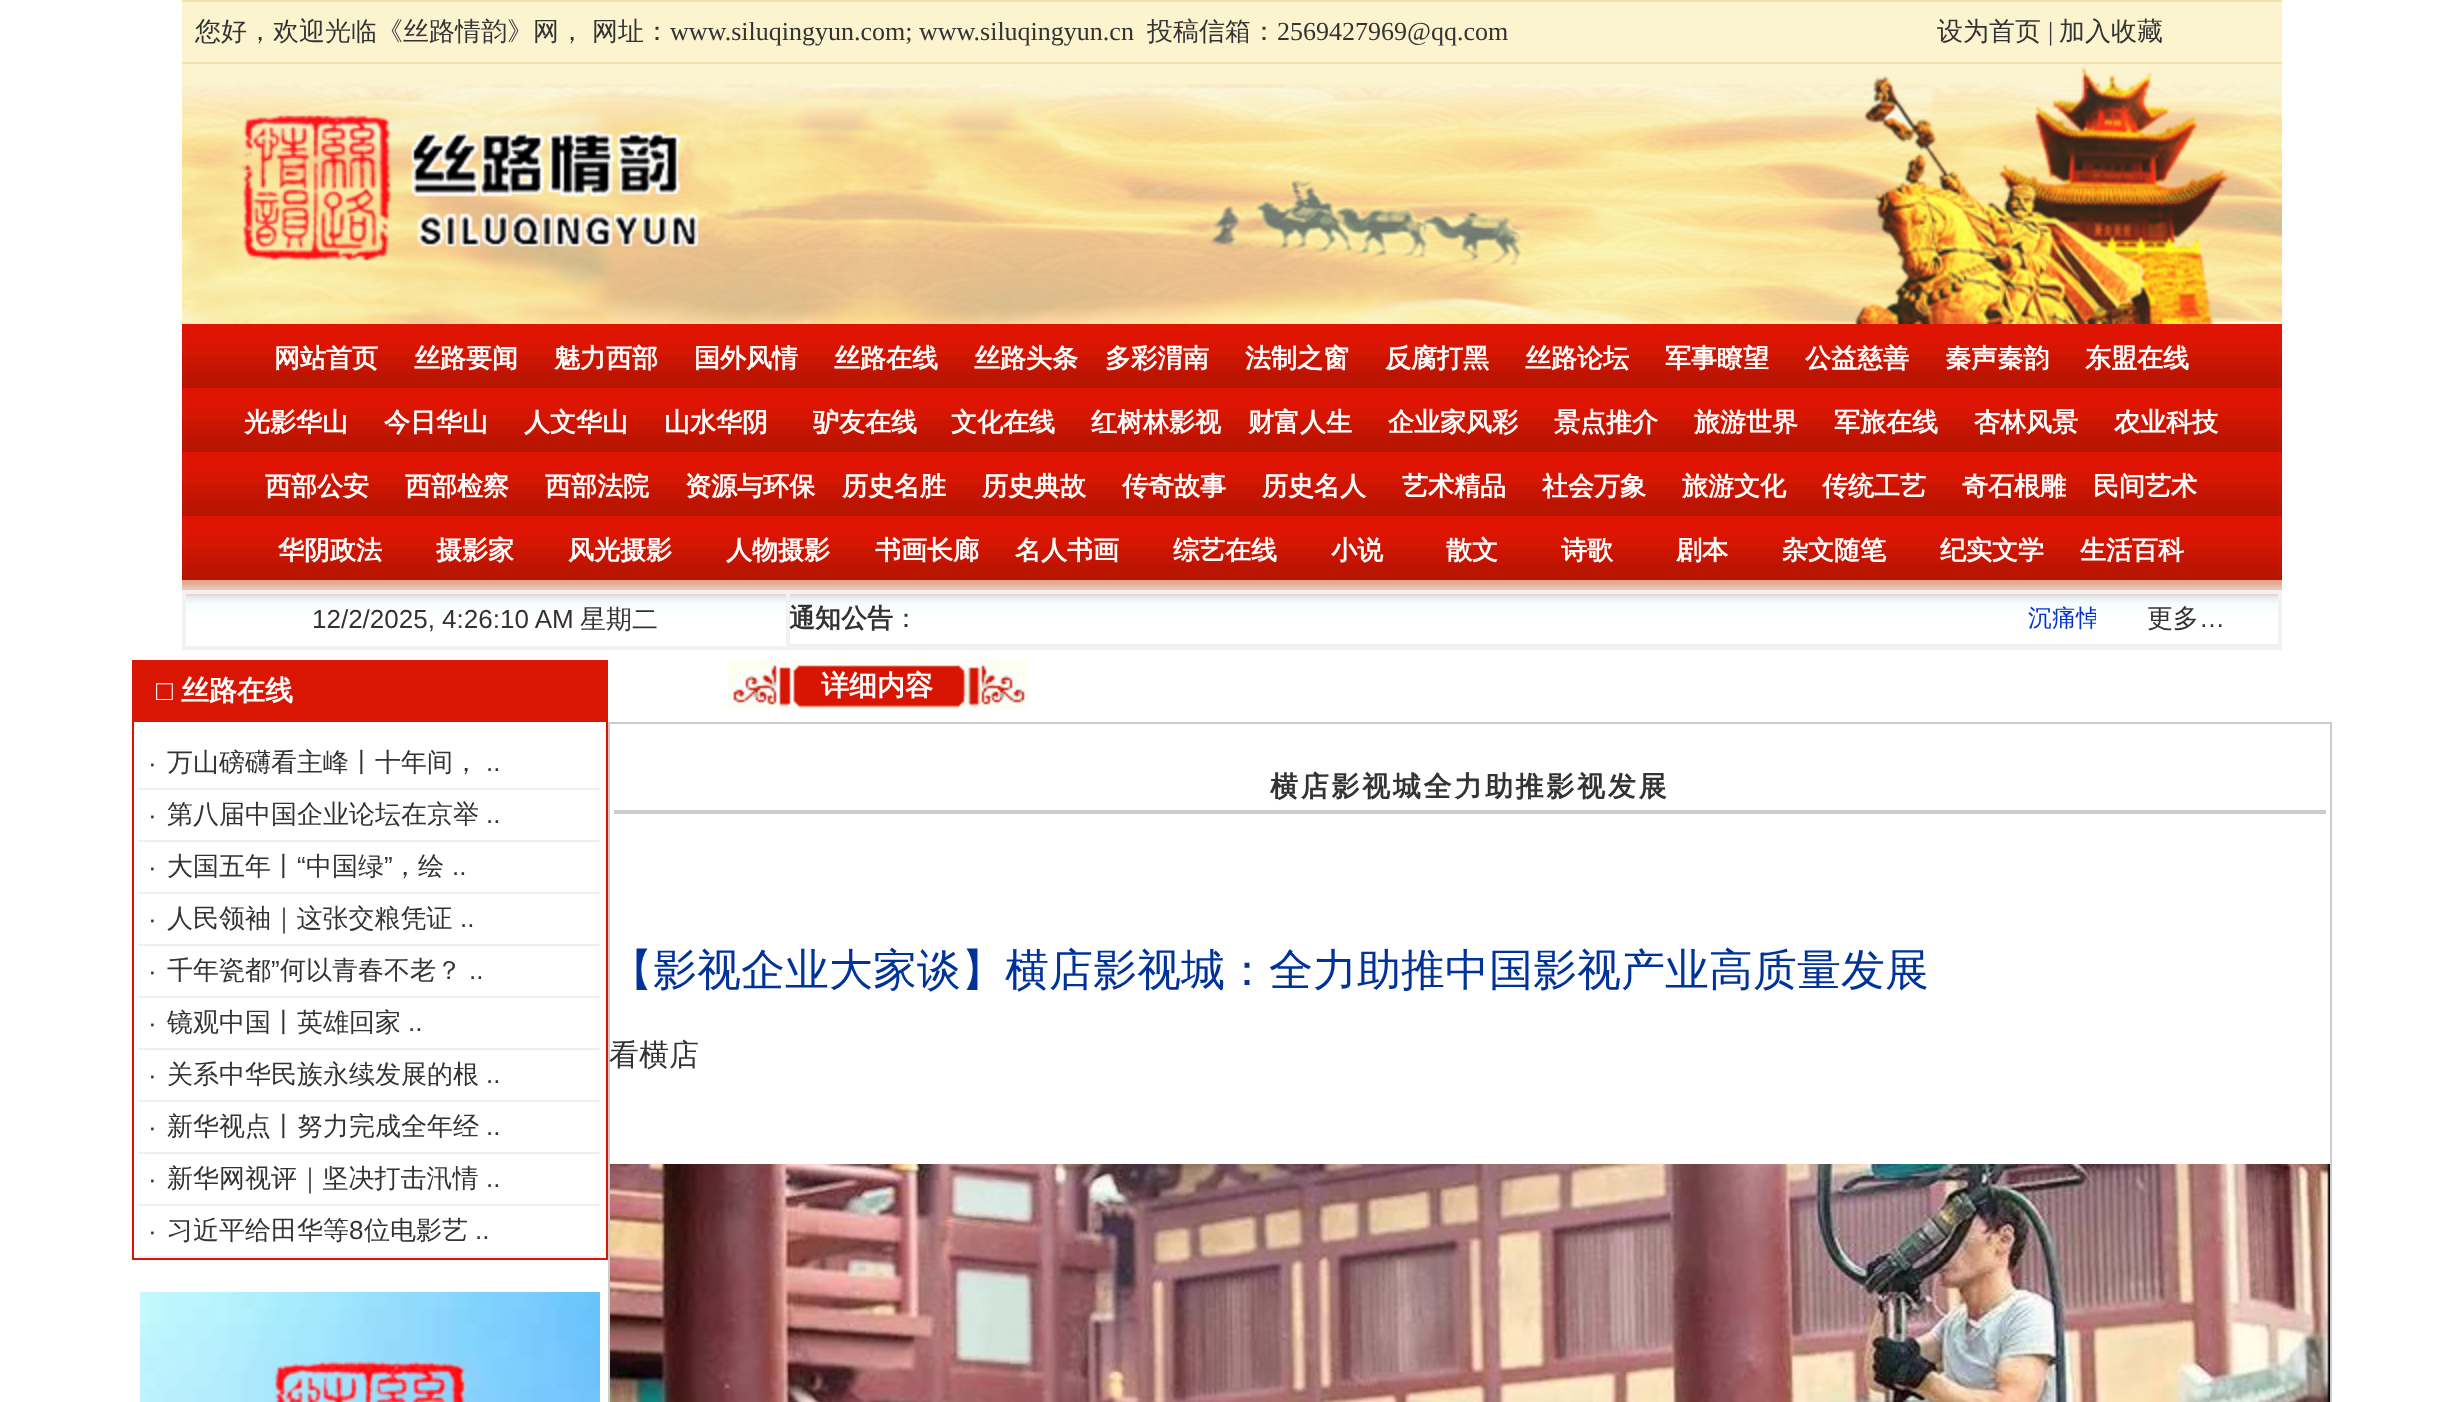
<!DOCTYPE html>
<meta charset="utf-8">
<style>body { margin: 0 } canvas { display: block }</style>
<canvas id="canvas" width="2461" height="1402"></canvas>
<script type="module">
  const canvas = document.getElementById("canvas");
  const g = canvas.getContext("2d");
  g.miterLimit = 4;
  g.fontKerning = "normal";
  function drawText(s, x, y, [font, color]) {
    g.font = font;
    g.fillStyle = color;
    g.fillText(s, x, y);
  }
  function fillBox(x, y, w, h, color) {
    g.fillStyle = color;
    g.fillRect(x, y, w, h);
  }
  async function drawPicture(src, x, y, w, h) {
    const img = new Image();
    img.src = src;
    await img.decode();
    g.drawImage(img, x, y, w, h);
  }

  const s1 = ["500 26px WenQuanYi Zen Hei", "#333333"];
  const s2 = ["26px Liberation Serif", "#333333"];
  const s3 = ["bold 26px WenQuanYi Zen Hei", "#FFFFFF"];
  const s4 = ["26px Liberation Sans", "#333333"];
  const s5 = ["bold 26px WenQuanYi Zen Hei", "#333333"];
  const s6 = ["500 24px WenQuanYi Zen Hei", "#0033CC"];
  const s7 = ["bold 28px Liberation Sans", "#FFFFFF"];
  const s8 = ["bold 28px WenQuanYi Zen Hei", "#FFFFFF"];
  const s9 = ["bold 28px WenQuanYi Zen Hei", "#333333"];
  const s10 = ["500 44px WenQuanYi Zen Hei", "#003399"];
  const s11 = ["500 30px WenQuanYi Zen Hei", "#333333"];

  fillBox(0, 0, 2461, 1402, "#FFFFFF");
  fillBox(182, 0, 2100, 64, "#F1E1A5");
  fillBox(182, 2, 2100, 60, "#FCF3CF");
  drawText("您好，欢迎光临《丝路情韵》网，", 195, 40, s1);
  drawText("网址：", 592, 40, s1);
  drawText("www.siluqingyun.com; www.siluqingyun.cn", 670, 40, s2);
  drawText("投稿信箱：", 1147, 40, s1);
  drawText("2569427969@qq.com", 1277, 40, s2);
  drawText("设为首页", 1937, 40, s1);
  drawText("|", 2048, 40, s2);
  drawText("加入收藏", 2059, 40, s1);
  await drawPicture("pic1.png", 182, 64, 2100, 260);
  await drawPicture("pic2.png", 182, 324, 2100, 64);
  drawText("网站首页", 274, 367, s3);
  drawText("丝路要闻", 414, 367, s3);
  drawText("魅力西部", 554, 367, s3);
  drawText("国外风情", 694, 367, s3);
  drawText("丝路在线", 834, 367, s3);
  drawText("丝路头条", 974, 367, s3);
  drawText("多彩渭南", 1105, 367, s3);
  drawText("法制之窗", 1245, 367, s3);
  drawText("反腐打黑", 1385, 367, s3);
  drawText("丝路论坛", 1525, 367, s3);
  drawText("军事瞭望", 1665, 367, s3);
  drawText("公益慈善", 1805, 367, s3);
  drawText("秦声秦韵", 1945, 367, s3);
  drawText("东盟在线", 2085, 367, s3);
  await drawPicture("pic2.png", 182, 388, 2100, 64);
  drawText("光影华山", 244, 431, s3);
  drawText("今日华山", 384, 431, s3);
  drawText("人文华山", 524, 431, s3);
  drawText("山水华阴", 664, 431, s3);
  drawText("驴友在线", 813, 431, s3);
  drawText("文化在线", 951, 431, s3);
  drawText("红树林影视", 1091, 431, s3);
  drawText("财富人生", 1248, 431, s3);
  drawText("企业家风彩", 1388, 431, s3);
  drawText("景点推介", 1554, 431, s3);
  drawText("旅游世界", 1694, 431, s3);
  drawText("军旅在线", 1834, 431, s3);
  drawText("杏林风景", 1974, 431, s3);
  drawText("农业科技", 2114, 431, s3);
  await drawPicture("pic2.png", 182, 452, 2100, 64);
  drawText("西部公安", 265, 495, s3);
  drawText("西部检察", 405, 495, s3);
  drawText("西部法院", 545, 495, s3);
  drawText("资源与环保", 685, 495, s3);
  drawText("历史名胜", 842, 495, s3);
  drawText("历史典故", 982, 495, s3);
  drawText("传奇故事", 1122, 495, s3);
  drawText("历史名人", 1262, 495, s3);
  drawText("艺术精品", 1402, 495, s3);
  drawText("社会万象", 1542, 495, s3);
  drawText("旅游文化", 1682, 495, s3);
  drawText("传统工艺", 1822, 495, s3);
  drawText("奇石根雕", 1962, 495, s3);
  drawText("民间艺术", 2093, 495, s3);
  await drawPicture("pic2.png", 182, 516, 2100, 64);
  drawText("华阴政法", 278, 559, s3);
  drawText("摄影家", 436, 559, s3);
  drawText("风光摄影", 568, 559, s3);
  drawText("人物摄影", 726, 559, s3);
  drawText("书画长廊", 875, 559, s3);
  drawText("名人书画", 1015, 559, s3);
  drawText("综艺在线", 1173, 559, s3);
  drawText("小说", 1331, 559, s3);
  drawText("散文", 1446, 559, s3);
  drawText("诗歌", 1561, 559, s3);
  drawText("剧本", 1676, 559, s3);
  drawText("杂文随笔", 1782, 559, s3);
  drawText("纪实文学", 1940, 559, s3);
  drawText("生活百科", 2080, 559, s3);
  await drawPicture("pic3.png", 182, 580, 2100, 33);
  g.strokeStyle = "#F2F2F2";
  g.lineWidth = 2;
  g.strokeRect(183, 591, 2098, 58);
  g.strokeRect(185, 593, 602, 54);
  drawText("12/2/2025, 4:26:10 AM", 312, 628, s4);
  drawText("星期二", 580, 628, s1);
  g.strokeRect(789, 593, 1490, 54);
  drawText("通知公告", 789, 627, s5);
  drawText("：", 893, 627, s1);
  g.save();
  g.beginPath();
  g.rect(1004, 602, 1092, 34);
  g.clip();
  drawText("沉痛悼", 2028, 626, s6);
  g.restore();
  drawText("更多", 2147, 627, s1);
  drawText("…", 2199, 627, s4);
  fillBox(790, 644, 1488, 2, "#EFEFEF");
  g.strokeStyle = "#D91604";
  g.strokeRect(133, 661, 474, 598);
  fillBox(134, 662, 472, 60, "#D91604");
  drawText("□", 156, 700, s7);
  drawText("丝路在线", 181, 700, s8);
  drawText("·", 148, 772, s4);
  drawText("万山磅礴看主峰丨十年间，", 167, 771, s1);
  drawText("..", 486, 771, s4);
  fillBox(138, 788, 462, 2, "#EFEFEF");
  drawText("·", 148, 824, s4);
  drawText("第八届中国企业论坛在京举", 167, 823, s1);
  drawText("..", 486, 823, s4);
  fillBox(138, 840, 462, 2, "#EFEFEF");
  drawText("·", 148, 876, s4);
  drawText("大国五年丨", 167, 875, s1);
  drawText("“", 297, 875, s4);
  drawText("中国绿", 306, 875, s1);
  drawText("”", 384, 875, s4);
  drawText("，绘", 392, 875, s1);
  drawText("..", 452, 875, s4);
  fillBox(138, 892, 462, 2, "#EFEFEF");
  drawText("·", 148, 928, s4);
  drawText("人民领袖｜这张交粮凭证", 167, 927, s1);
  drawText("..", 460, 927, s4);
  fillBox(138, 944, 462, 2, "#EFEFEF");
  drawText("·", 148, 980, s4);
  drawText("千年瓷都", 167, 979, s1);
  drawText("”", 271, 979, s4);
  drawText("何以青春不老？", 280, 979, s1);
  drawText("..", 469, 979, s4);
  fillBox(138, 996, 462, 2, "#EFEFEF");
  drawText("·", 148, 1032, s4);
  drawText("镜观中国丨英雄回家", 167, 1031, s1);
  drawText("..", 408, 1031, s4);
  fillBox(138, 1048, 462, 2, "#EFEFEF");
  drawText("·", 148, 1084, s4);
  drawText("关系中华民族永续发展的根", 167, 1083, s1);
  drawText("..", 486, 1083, s4);
  fillBox(138, 1100, 462, 2, "#EFEFEF");
  drawText("·", 148, 1136, s4);
  drawText("新华视点丨努力完成全年经", 167, 1135, s1);
  drawText("..", 486, 1135, s4);
  fillBox(138, 1152, 462, 2, "#EFEFEF");
  drawText("·", 148, 1188, s4);
  drawText("新华网视评｜坚决打击汛情", 167, 1187, s1);
  drawText("..", 486, 1187, s4);
  fillBox(138, 1204, 462, 2, "#EFEFEF");
  drawText("·", 148, 1240, s4);
  drawText("习近平给田华等", 167, 1239, s1);
  drawText("8", 349, 1239, s4);
  drawText("位电影艺", 364, 1239, s1);
  drawText("..", 475, 1239, s4);
  fillBox(138, 1256, 462, 2, "#EFEFEF");
  await drawPicture("pic4.png", 140, 1292, 460, 110);
  await drawPicture("pic5.png", 728, 660, 300, 50);
  drawText("详细内容", 821, 695, s8);
  g.strokeStyle = "#CCCCCC";
  g.strokeRect(609, 723, 1722, 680);
  g.letterSpacing = "2.7px";
  drawText("横店影视城全力助推影视发展", 1270, 796, s9);
  fillBox(614, 810, 1712, 4, "#CCCCCC");
  g.letterSpacing = "0px";
  drawText("【影视企业大家谈】横店影视城：全力助推中国影视产业高质量发展", 609, 985, s10);
  drawText("看横店", 609, 1065, s11);
  await drawPicture("pic6.png", 610, 1164, 1720, 238);
</script>
